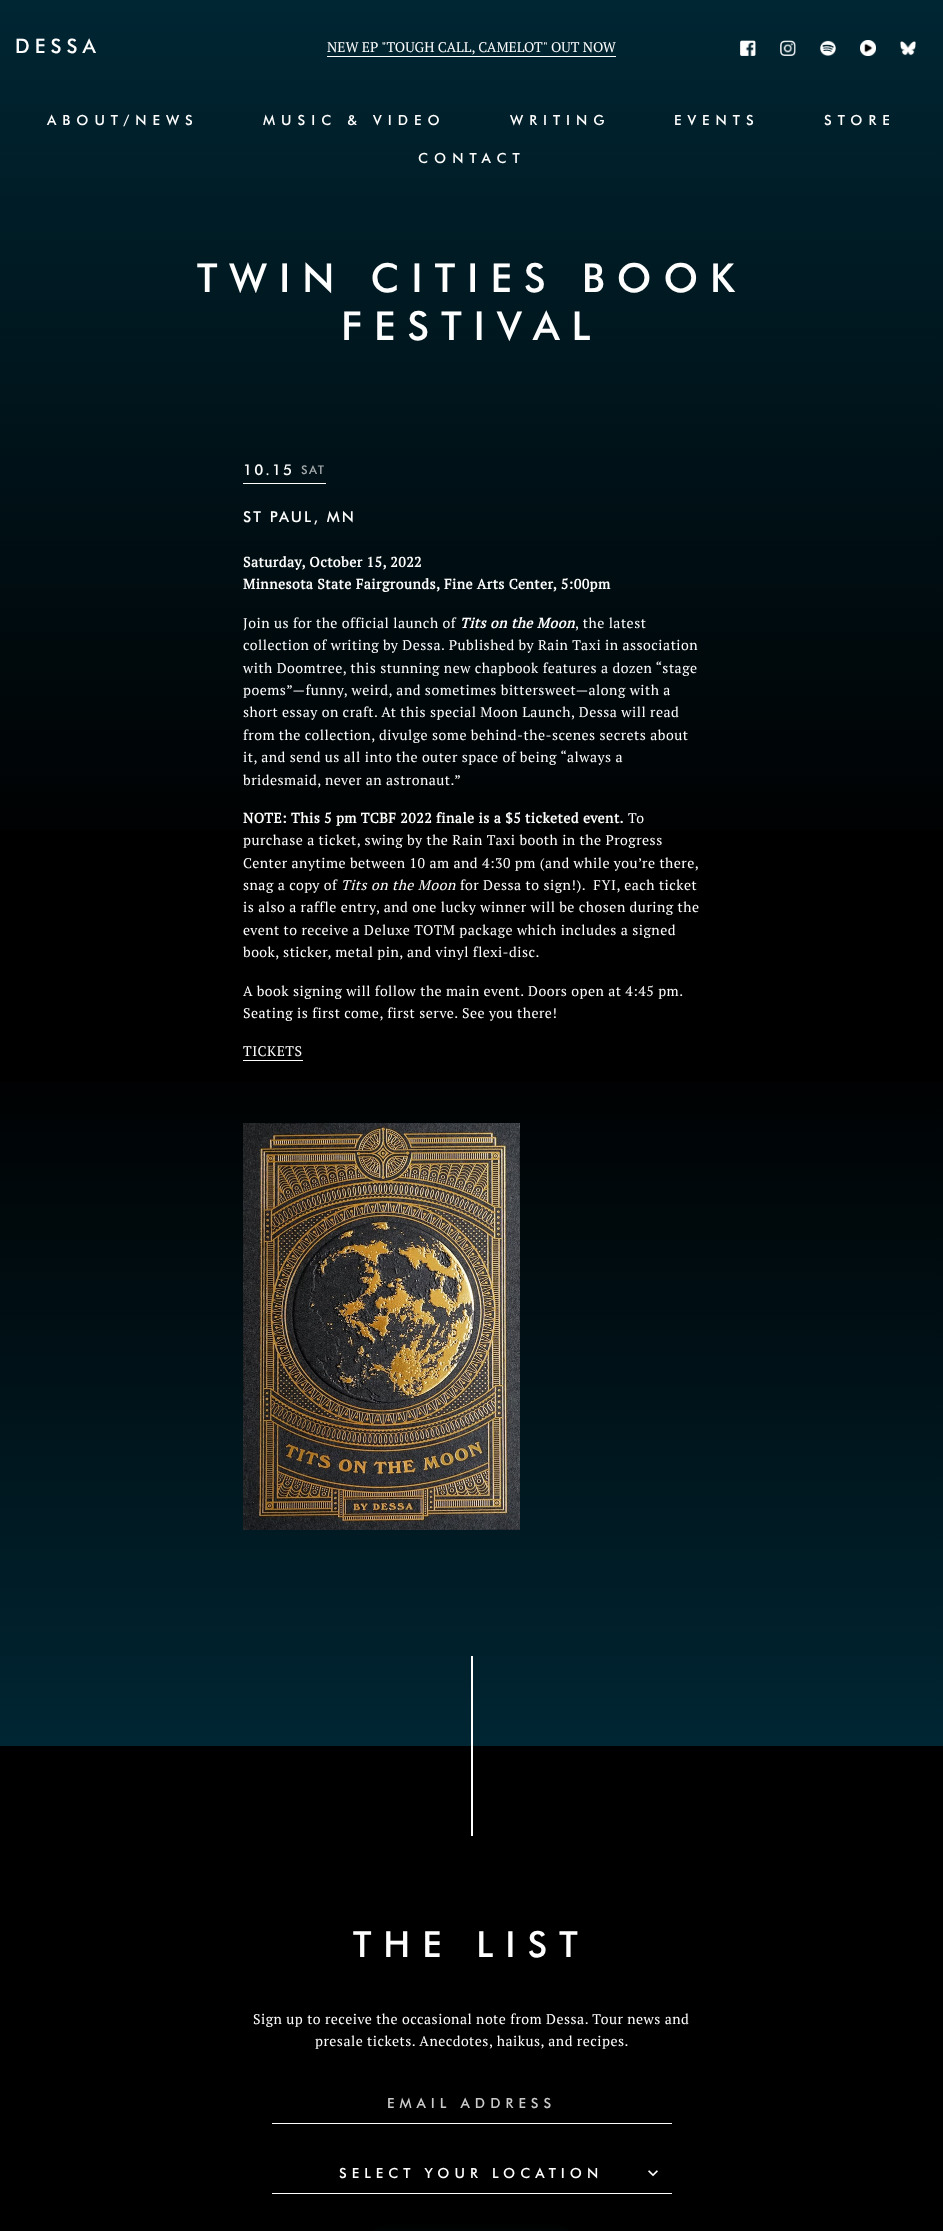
<!DOCTYPE html>
<meta charset="utf-8">
<style>body { margin: 0 } canvas { display: block }</style>
<canvas id="canvas" width="943" height="2231"></canvas>
<script type="module">
  const canvas = document.getElementById("canvas");
  const g = canvas.getContext("2d");
  g.miterLimit = 4;
  g.fontKerning = "normal";
  function drawText(s, x, y, [font, color]) {
    g.font = font;
    g.fillStyle = color;
    g.fillText(s, x, y);
  }
  function fillBox(x, y, w, h, color) {
    g.fillStyle = color;
    g.fillRect(x, y, w, h);
  }
  async function drawPicture(src, x, y, w, h) {
    const img = new Image();
    img.src = src;
    await img.decode();
    g.drawImage(img, x, y, w, h);
  }
  let gradient;

  const s1 = ["20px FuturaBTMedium", "#FEFEFE"];
  const s2 = ["14px PT Serif", "#FEFEFE"];
  const s3 = ["14px FuturaBTMedium", "#FEFEFE"];
  const s4 = ["40px FuturaBTMedium", "#FEFEFE"];
  const s5 = ["15px FuturaBTMedium", "#FEFEFE"];
  const s6 = ["12px FuturaBTMedium", "#A5ABAD"];
  const s7 = ["bold 14px PT Serif", "#FEFEFE"];
  const s8 = ["italic bold 14px PT Serif", "#FEFEFE"];
  const s9 = ["italic 14px PT Serif", "#FEFEFE"];
  const s10 = ["36px FuturaBTMedium", "#FEFEFE"];
  const s11 = ["14px FuturaBTMedium", "#CACACA"];

  fillBox(0, 0, 943, 2231, "#000000");
  gradient = g.createLinearGradient(472, 873, 472, 0);
  gradient.addColorStop(0, "#000000");
  gradient.addColorStop(1, "#002633");
  g.fillStyle = gradient;
  g.fillRect(0, 0, 943, 830);
  g.letterSpacing = "5px";
  drawText("DESSA", 15, 53, s1);
  g.letterSpacing = "0px";
  drawText("NEW EP \"TOUGH CALL, CAMELOT\" OUT NOW", 327, 52, s2);
  fillBox(327, 56, 289, 1, "#FFFFFF");
  await drawPicture("pic1.png", 740, 40, 16, 16);
  await drawPicture("pic2.png", 780, 40, 16, 16);
  await drawPicture("pic3.png", 820, 40, 16, 16);
  await drawPicture("pic4.png", 860, 40, 16, 16);
  await drawPicture("pic5.png", 900, 41, 16, 15);
  g.letterSpacing = "6px";
  drawText("ABOUT/NEWS", 47, 125, s3);
  drawText("MUSIC & VIDEO", 263, 125, s3);
  drawText("WRITING", 510, 125, s3);
  drawText("EVENTS", 674, 125, s3);
  drawText("STORE", 824, 125, s3);
  drawText("CONTACT", 418, 163, s3);
  g.letterSpacing = "12px";
  drawText("TWIN CITIES BOOK", 197, 292, s4);
  drawText("FESTIVAL", 341, 340, s4);
  fillBox(243, 483, 83, 1, "#FEFEFE");
  g.letterSpacing = "2.1px";
  drawText("10.15", 243, 475, s5);
  g.letterSpacing = "1.5px";
  drawText("SAT", 301, 474, s6);
  g.letterSpacing = "2.1px";
  drawText("ST PAUL, MN", 243, 522, s5);
  g.letterSpacing = "0.5px";
  drawText("Saturday, October 15, 2022", 243, 567, s7);
  drawText("Minnesota State Fairgrounds, Fine Arts Center, 5:00pm", 243, 589, s7);
  drawText("Join us for the official launch of", 243, 628, s2);
  drawText("Tits on the Moon", 460, 628, s8);
  drawText(", the latest", 575, 628, s2);
  drawText("collection of writing by Dessa. Published by Rain Taxi in association", 243, 650, s2);
  drawText("with Doomtree, this stunning new chapbook features a dozen “stage", 243, 673, s2);
  drawText("poems”—funny, weird, and sometimes bittersweet—along with a", 243, 695, s2);
  drawText("short essay on craft. At this special Moon Launch, Dessa will read", 243, 717, s2);
  drawText("from the collection, divulge some behind-the-scenes secrets about", 243, 740, s2);
  drawText("it, and send us all into the outer space of being “always a", 243, 762, s2);
  drawText("bridesmaid, never an astronaut.”", 243, 785, s2);
  drawText("NOTE: This 5 pm TCBF 2022 finale is a $5 ticketed event.", 243, 823, s7);
  drawText("To", 628, 823, s2);
  drawText("purchase a ticket, swing by the Rain Taxi booth in the Progress", 243, 845, s2);
  drawText("Center anytime between 10 am and 4:30 pm (and while you’re there,", 243, 868, s2);
  drawText("snag a copy of", 243, 890, s2);
  drawText("Tits on the Moon", 341, 890, s9);
  drawText("for Dessa to sign!).  FYI, each ticket", 460, 890, s2);
  drawText("is also a raffle entry, and one lucky winner will be chosen during the", 243, 912, s2);
  drawText("event to receive a Deluxe TOTM package which includes a signed", 243, 935, s2);
  drawText("book, sticker, metal pin, and vinyl flexi-disc.", 243, 957, s2);
  drawText("A book signing will follow the main event. Doors open at 4:45 pm.", 243, 996, s2);
  drawText("Seating is first come, first serve. See you there!", 243, 1018, s2);
  drawText("TICKETS", 243, 1056, s2);
  fillBox(243, 1060, 60, 1, "#FFFFFF");
  gradient = g.createLinearGradient(472, 1746, 472, 1047);
  gradient.addColorStop(0, "#002633");
  gradient.addColorStop(1, "#000000");
  g.fillStyle = gradient;
  g.fillRect(0, 1081, 943, 665);
  await drawPicture("pic6.png", 243, 1123, 277, 407);
  fillBox(471, 1656, 2, 180, "#FEFEFE");
  g.letterSpacing = "12px";
  drawText("THE LIST", 353, 1957, s10);
  g.letterSpacing = "0.5px";
  drawText("Sign up to receive the occasional note from Dessa. Tour news and", 253, 2024, s2);
  drawText("presale tickets. Anecdotes, haikus, and recipes.", 315, 2046, s2);
  fillBox(272, 2123, 400, 1, "#FEFEFE");
  g.letterSpacing = "5px";
  drawText("EMAIL ADDRESS", 387, 2108, s11);
  fillBox(272, 2193, 400, 1, "#FEFEFE");
  drawText("SELECT YOUR LOCATION", 339, 2178, s3);
  await drawPicture("pic7.png", 648, 2170, 10, 7);
  gradient = g.createLinearGradient(472, 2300, 472, 2224);
  gradient.addColorStop(0, "#002633");
  gradient.addColorStop(1, "#000000");
  g.fillStyle = gradient;
  g.beginPath();
  g.roundRect(368, 2224, 207, 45, 38);
  g.fill();
</script>
